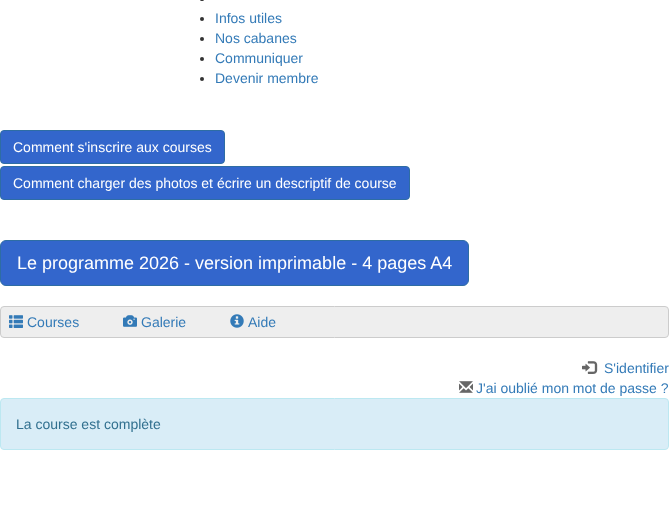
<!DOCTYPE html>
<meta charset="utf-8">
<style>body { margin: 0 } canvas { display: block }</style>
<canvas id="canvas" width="669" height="531"></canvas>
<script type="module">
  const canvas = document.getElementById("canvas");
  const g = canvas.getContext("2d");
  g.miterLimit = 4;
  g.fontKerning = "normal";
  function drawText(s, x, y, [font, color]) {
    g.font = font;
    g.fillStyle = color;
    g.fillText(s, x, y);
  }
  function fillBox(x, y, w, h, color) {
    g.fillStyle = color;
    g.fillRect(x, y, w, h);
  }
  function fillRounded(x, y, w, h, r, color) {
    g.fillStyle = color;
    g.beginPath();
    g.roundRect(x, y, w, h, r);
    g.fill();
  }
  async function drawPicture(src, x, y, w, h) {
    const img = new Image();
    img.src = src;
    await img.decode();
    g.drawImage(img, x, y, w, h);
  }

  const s1 = ["14px Liberation Sans", "#337AB7"];
  const s2 = ["14px Liberation Sans", "#FFFFFF"];
  const s3 = ["18px Liberation Sans", "#FFFFFF"];
  const s4 = ["14px Liberation Sans", "#31708F"];

  fillBox(0, 0, 669, 531, "#FFFFFF");
  fillRounded(200, -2, 4, 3, 2, "#333333");
  g.beginPath();
  g.arc(202, 19, 2, 0, Math.PI * 2);
  g.fill();
  drawText("Infos utiles", 215, 23, s1);
  g.fillStyle = "#333333";
  g.beginPath();
  g.arc(202, 39, 2, 0, Math.PI * 2);
  g.fill();
  drawText("Nos cabanes", 215, 43, s1);
  g.fillStyle = "#333333";
  g.beginPath();
  g.arc(202, 59, 2, 0, Math.PI * 2);
  g.fill();
  drawText("Communiquer", 215, 63, s1);
  g.fillStyle = "#333333";
  g.beginPath();
  g.arc(202, 79, 2, 0, Math.PI * 2);
  g.fill();
  drawText("Devenir membre", 215, 83, s1);
  g.fillStyle = "#3366CC";
  g.beginPath();
  g.roundRect(0.5, 130.5, 224, 33, 3.5);
  g.fill();
  g.strokeStyle = "#2E6DA4";
  g.stroke();
  drawText("Comment s'inscrire aux courses", 13, 152, s2);
  g.fillStyle = "#3366CC";
  g.beginPath();
  g.roundRect(0.5, 166.5, 409, 33, 3.5);
  g.fill();
  g.stroke();
  drawText("Comment charger des photos et écrire un descriptif de course", 13, 188, s2);
  g.fillStyle = "#3366CC";
  g.beginPath();
  g.roundRect(0.5, 240.5, 468, 45, 5.5);
  g.fill();
  g.stroke();
  drawText("Le programme 2026 - version imprimable - 4 pages A4", 17, 269, s3);
  g.fillStyle = "#EEEEEE";
  g.beginPath();
  g.roundRect(0.5, 306.5, 668, 31, 3.5);
  g.fill();
  g.strokeStyle = "#CCCCCC";
  g.stroke();
  await drawPicture("pic1.png", 9, 315, 14, 13);
  drawText("Courses", 27, 327, s1);
  await drawPicture("pic2.png", 123, 315, 14, 12);
  drawText("Galerie", 141, 327, s1);
  await drawPicture("pic3.png", 230, 314, 14, 14);
  drawText("Aide", 248, 327, s1);
  await drawPicture("pic4.png", 582, 361, 16, 13);
  drawText("S'identifier", 604, 373, s1);
  await drawPicture("pic5.png", 459, 381, 14, 12);
  drawText("J'ai oublié mon mot de passe ?", 476, 393, s1);
  g.fillStyle = "#D9EDF7";
  g.beginPath();
  g.roundRect(0.5, 398.5, 668, 51, 3.5);
  g.fill();
  g.strokeStyle = "#BCE8F1";
  g.stroke();
  drawText("La course est complète", 16, 429, s4);
</script>
